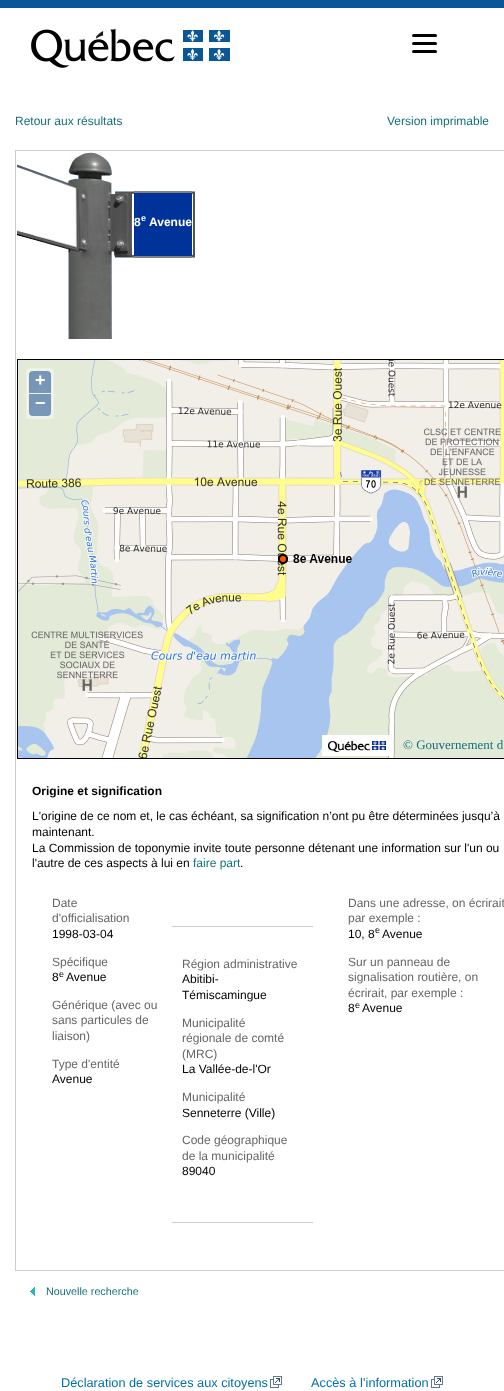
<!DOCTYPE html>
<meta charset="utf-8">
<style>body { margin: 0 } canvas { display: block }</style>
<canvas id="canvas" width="504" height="1391"></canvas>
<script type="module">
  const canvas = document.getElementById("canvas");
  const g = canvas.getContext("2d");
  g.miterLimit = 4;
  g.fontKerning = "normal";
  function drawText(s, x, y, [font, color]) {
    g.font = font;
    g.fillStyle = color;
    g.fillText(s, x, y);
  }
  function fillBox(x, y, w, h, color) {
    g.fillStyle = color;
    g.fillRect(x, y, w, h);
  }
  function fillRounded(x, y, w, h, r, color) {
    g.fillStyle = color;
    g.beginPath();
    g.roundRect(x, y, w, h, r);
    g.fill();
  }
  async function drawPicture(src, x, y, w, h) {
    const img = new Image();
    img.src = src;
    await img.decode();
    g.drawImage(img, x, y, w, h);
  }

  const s1 = ["12px Liberation Sans", "#13717A"];
  const s2 = ["bold 12px Liberation Sans", "#FFFFFF"];
  const s3 = ["bold 9px Liberation Sans", "#FFFFFF"];
  const s4 = ["bold 18px Liberation Sans", "#FFFFFF"];
  const s5 = ["13px Liberation Serif", "#13717A"];
  const s6 = ["bold 12px Liberation Sans", "#000000"];
  const s7 = ["12px Liberation Sans", "#000000"];
  const s8 = ["12px Liberation Sans", "#666666"];
  const s9 = ["9px Liberation Sans", "#000000"];
  const s10 = ["10.75px Liberation Sans", "#13717A"];
  const s11 = ["12.75px Liberation Sans", "#006FA9"];

  fillBox(0, 0, 504, 1391, "#FFFFFF");
  fillBox(0, 0, 504, 8, "#095797");
  await drawPicture("pic1.png", 31, 28, 199, 40);
  fillRounded(412, 42, 25, 3, 1.5, "#000000");
  fillRounded(412, 34, 25, 3, 1.5, "#000000");
  fillRounded(412, 50, 25, 3, 1.5, "#000000");
  drawText("Retour aux résultats", 15, 125, s1);
  drawText("Version imprimable", 387, 125, s1);
  fillBox(15, 150, 489, 1, "#CCCCCC");
  fillBox(15, 1270, 489, 1, "#CCCCCC");
  fillBox(15, 150, 1, 1121, "#CCCCCC");
  await drawPicture("pic2.png", 17, 164, 51, 22);
  await drawPicture("pic3.png", 68, 152, 44, 39);
  await drawPicture("pic4.png", 68, 191, 44, 67);
  await drawPicture("pic5.png", 112, 191, 21, 67);
  await drawPicture("pic6.png", 133, 191, 1, 67);
  fillBox(134, 193, 58, 63, "#003399");
  fillBox(134, 191, 58, 2, "#808080");
  fillBox(134, 256, 58, 2, "#808080");
  drawText("8", 134, 226, s2);
  drawText("e", 141, 221, s3);
  drawText("Avenue", 149, 226, s2);
  await drawPicture("pic7.png", 192, 191, 3, 67);
  await drawPicture("pic8.png", 17, 230, 51, 20);
  await drawPicture("pic9.png", 68, 258, 44, 81);
  g.strokeStyle = "#000000";
  g.strokeRect(17.5, 359.5, 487, 399);
  fillBox(18, 360, 3, 33, "#E4EAD8");
  await drawPicture("pic10.png", 21, 360, 256, 33);
  await drawPicture("pic11.png", 277, 360, 227, 33);
  await drawPicture("pic12.png", 18, 393, 3, 256);
  await drawPicture("pic13.png", 21, 393, 256, 256);
  await drawPicture("pic14.png", 277, 393, 227, 256);
  await drawPicture("pic15.png", 18, 649, 3, 109);
  await drawPicture("pic16.png", 21, 649, 256, 109);
  await drawPicture("pic17.png", 277, 649, 227, 109);
  g.fillStyle = "#FF5500";
  g.beginPath();
  g.arc(283, 559, 4, 0, Math.PI * 2);
  g.fill();
  g.lineWidth = 2;
  g.stroke();
  fillRounded(26, 368, 28, 51, 4, "#EFF2E8");
  g.fillStyle = "#7897B8";
  g.beginPath();
  g.roundRect(29, 371, 22, 22, [4, 4, 0, 0]);
  g.fill();
  drawText("+", 35, 386, s4);
  g.fillStyle = "#7897B8";
  g.beginPath();
  g.roundRect(29, 394, 22, 22, [0, 0, 4, 4]);
  g.fill();
  drawText("−", 35, 409, s4);
  await drawPicture("pic18.png", 322, 735, 68, 21);
  drawText("© Gouvernement d", 403, 749, s5);
  drawText("Origine et signification", 32, 795, s6);
  drawText("L'origine de ce nom et, le cas échéant, sa signification n’ont pu être déterminées jusqu’à", 32, 820, s7);
  drawText("maintenant.", 32, 836, s7);
  drawText("La Commission de toponymie invite toute personne détenant une information sur l'un ou", 32, 852, s7);
  drawText("l'autre de ces aspects à lui en", 32, 867, s7);
  drawText("faire part", 193, 867, s1);
  drawText(".", 240, 867, s7);
  drawText("Date", 52, 907, s8);
  drawText("d'officialisation", 52, 922, s8);
  drawText("1998-03-04", 52, 938, s7);
  drawText("Spécifique", 52, 966, s8);
  drawText("8", 52, 981, s7);
  drawText("e", 59, 977, s9);
  drawText("Avenue", 66, 981, s7);
  drawText("Générique (avec ou", 52, 1009, s8);
  drawText("sans particules de", 52, 1024, s8);
  drawText("liaison)", 52, 1040, s8);
  drawText("Type d'entité", 52, 1068, s8);
  drawText("Avenue", 52, 1083, s7);
  fillBox(172, 926, 141, 1, "#CCCCCC");
  fillBox(172, 1222, 141, 1, "#CCCCCC");
  drawText("Région administrative", 182, 968, s8);
  drawText("Abitibi-", 182, 983, s7);
  drawText("Témiscamingue", 182, 999, s7);
  drawText("Municipalité", 182, 1027, s8);
  drawText("régionale de comté", 182, 1042, s8);
  drawText("(MRC)", 182, 1058, s8);
  drawText("La Vallée-de-l'Or", 182, 1073, s7);
  drawText("Municipalité", 182, 1101, s8);
  drawText("Senneterre (Ville)", 182, 1117, s7);
  drawText("Code géographique", 182, 1144, s8);
  drawText("de la municipalité", 182, 1160, s8);
  drawText("89040", 182, 1175, s7);
  drawText("Dans une adresse, on écrirait", 348, 907, s8);
  drawText("par exemple :", 348, 922, s8);
  drawText("10, 8", 348, 938, s7);
  drawText("e", 375, 933, s9);
  drawText("Avenue", 382, 938, s7);
  drawText("Sur un panneau de", 348, 966, s8);
  drawText("signalisation routière, on", 348, 981, s8);
  drawText("écrirait, par exemple :", 348, 997, s8);
  drawText("8", 348, 1012, s7);
  drawText("e", 355, 1008, s9);
  drawText("Avenue", 362, 1012, s7);
  await drawPicture("pic19.png", 30, 1287, 5, 9);
  drawText("Nouvelle recherche", 46, 1295, s10);
  drawText("Déclaration de services aux citoyens", 61, 1387, s11);
  await drawPicture("pic20.png", 270, 1376, 12, 12);
  drawText("Accès à l’information", 311, 1387, s11);
  await drawPicture("pic20.png", 431, 1376, 12, 12);
</script>
